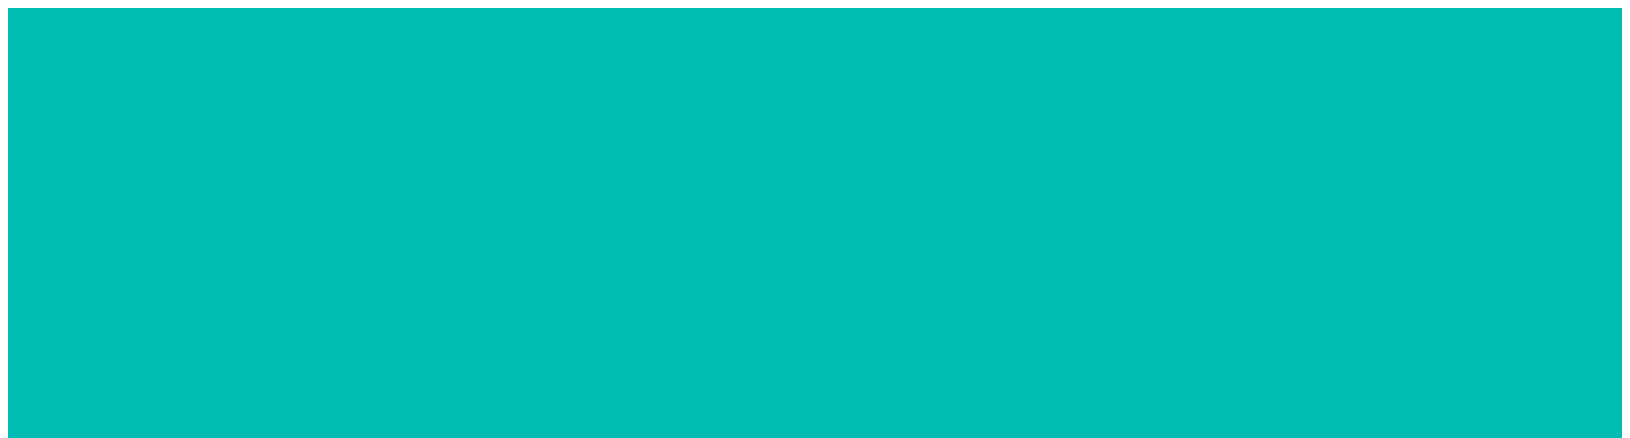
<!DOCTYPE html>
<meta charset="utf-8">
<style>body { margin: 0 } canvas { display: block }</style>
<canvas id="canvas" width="1630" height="438"></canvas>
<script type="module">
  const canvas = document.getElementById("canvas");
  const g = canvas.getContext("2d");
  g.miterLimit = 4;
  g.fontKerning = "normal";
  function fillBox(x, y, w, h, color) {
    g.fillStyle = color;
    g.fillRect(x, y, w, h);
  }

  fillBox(0, 0, 1630, 438, "#FFFFFF");
  fillBox(8, 8, 1614, 430, "#00BDB3");
</script>
